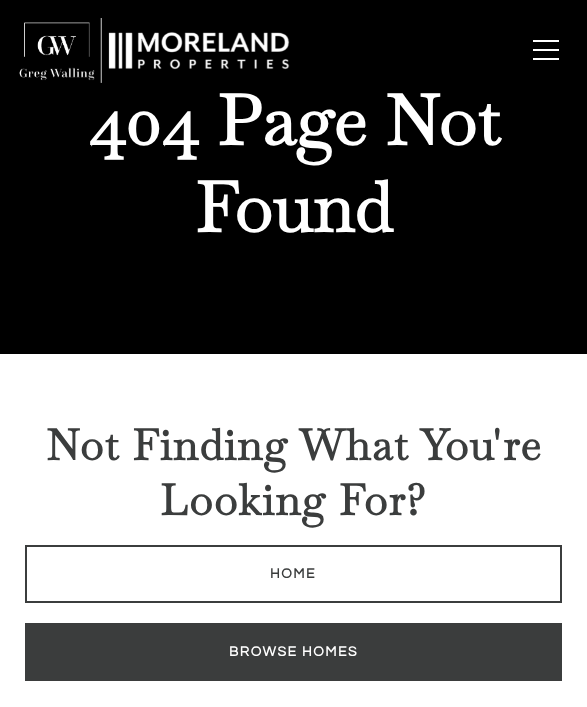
<!DOCTYPE html>
<meta charset="utf-8">
<style>body { margin: 0 } canvas { display: block }</style>
<canvas id="canvas" width="587" height="707"></canvas>
<script type="module">
  const canvas = document.getElementById("canvas");
  const g = canvas.getContext("2d");
  g.miterLimit = 4;
  g.fontKerning = "normal";
  function drawText(s, x, y, [font, color]) {
    g.font = font;
    g.fillStyle = color;
    g.fillText(s, x, y);
  }
  function fillBox(x, y, w, h, color) {
    g.fillStyle = color;
    g.fillRect(x, y, w, h);
  }
  async function drawPicture(src, x, y, w, h) {
    const img = new Image();
    img.src = src;
    await img.decode();
    g.drawImage(img, x, y, w, h);
  }

  const s1 = ["bold 70px Baskervville", "#FFFFFF"];
  const s2 = ["bold 43px Baskervville", "#3B3D3D"];
  const s3 = ["bold 14px Questrial", "#3B3D3D"];
  const s4 = ["bold 14px Questrial", "#FFFFFF"];

  fillBox(0, 0, 587, 707, "#FFFFFF");
  fillBox(0, 0, 587, 354, "#000000");
  await drawPicture("pic1.png", 19, 18, 271, 65);
  fillBox(533, 49, 26, 2, "#FFFFFF");
  fillBox(533, 40, 26, 2, "#FFFFFF");
  fillBox(533, 58, 26, 2, "#FFFFFF");
  drawText("404 Page Not", 87, 145, s1);
  drawText("Found", 195, 232, s1);
  g.letterSpacing = "1px";
  drawText("Not Finding What You're", 46, 460, s2);
  drawText("Looking For?", 160, 515, s2);
  g.strokeStyle = "#3B3D3D";
  g.lineWidth = 2;
  g.strokeRect(26, 546, 535, 56);
  g.letterSpacing = "1.5px";
  drawText("HOME", 270, 578, s3);
  fillBox(25, 623, 537, 58, "#3B3D3D");
  drawText("BROWSE HOMES", 229, 656, s4);
</script>
